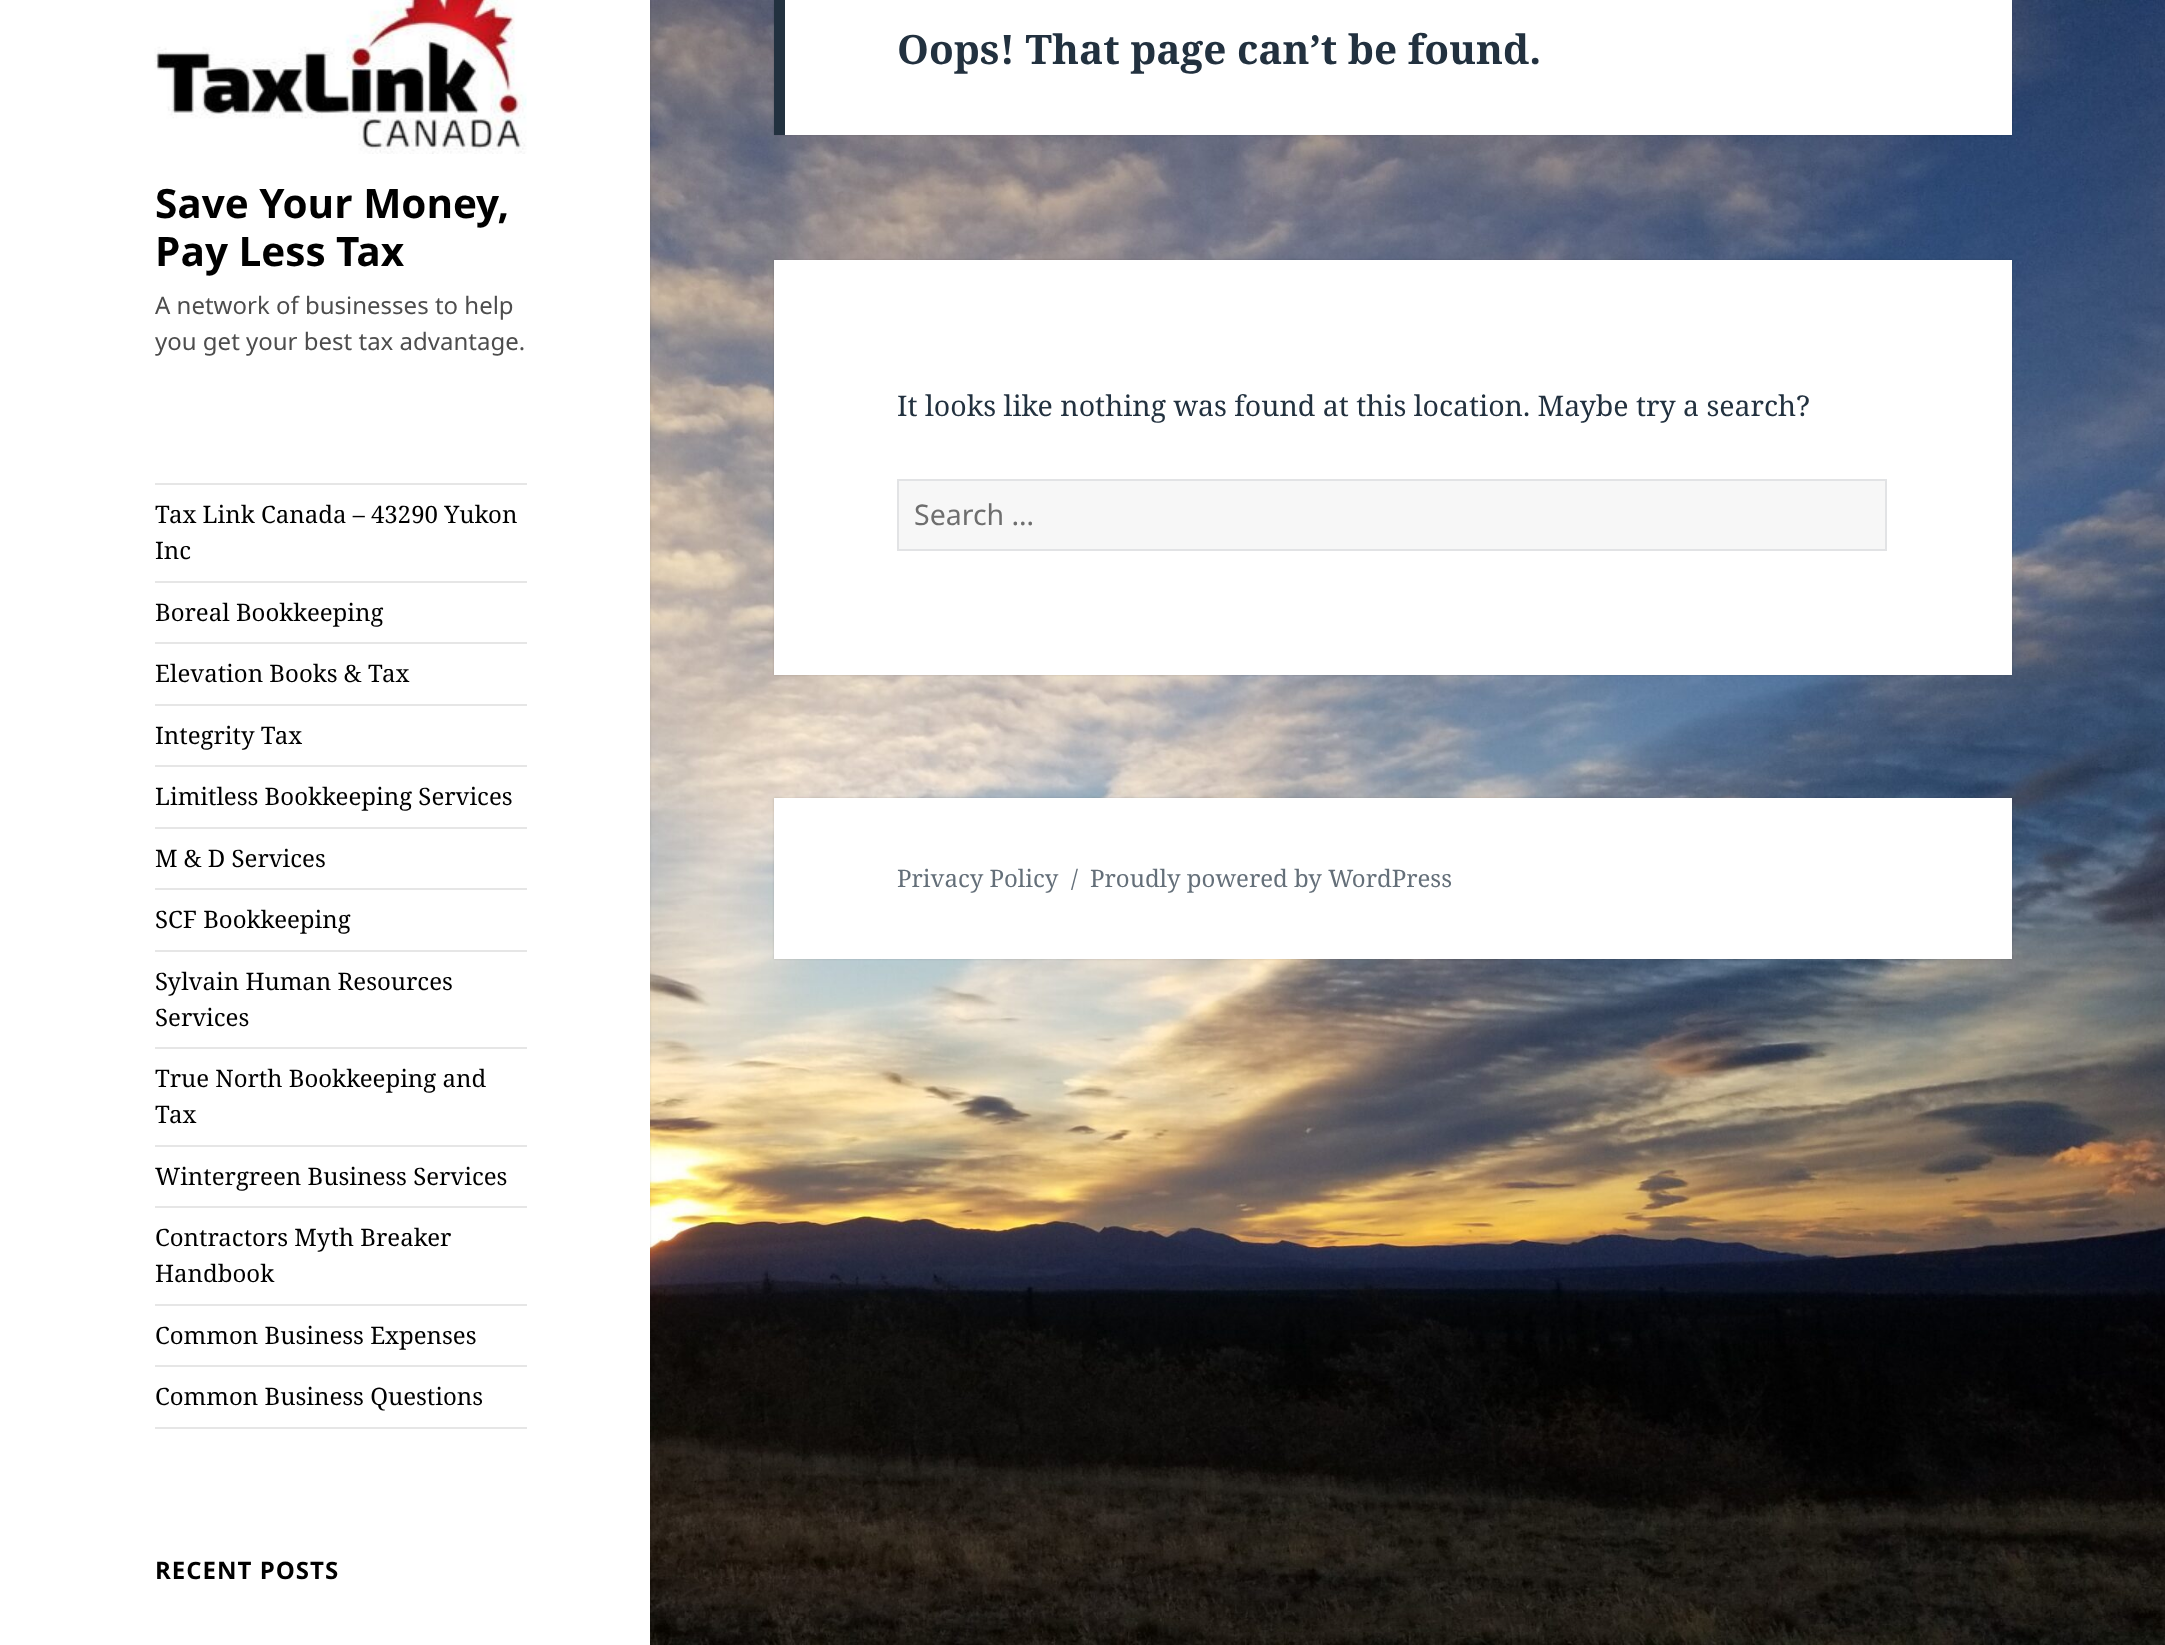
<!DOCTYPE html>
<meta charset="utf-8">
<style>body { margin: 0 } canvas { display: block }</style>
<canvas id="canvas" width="2165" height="1645"></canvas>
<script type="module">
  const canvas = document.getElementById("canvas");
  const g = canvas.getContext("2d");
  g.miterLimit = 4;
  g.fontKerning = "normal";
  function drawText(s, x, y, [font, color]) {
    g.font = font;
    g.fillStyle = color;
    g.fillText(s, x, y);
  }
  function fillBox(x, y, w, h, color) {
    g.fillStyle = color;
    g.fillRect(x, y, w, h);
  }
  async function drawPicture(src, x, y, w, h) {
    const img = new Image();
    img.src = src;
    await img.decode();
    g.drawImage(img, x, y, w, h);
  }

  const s1 = ["bold 40.5px Noto Sans", "#000000"];
  const s2 = ["24px Noto Sans", "#4D4D4D"];
  const s3 = ["24px Noto Serif", "#000000"];
  const s4 = ["bold 24px Noto Sans", "#000000"];
  const s5 = ["bold 40.5px Noto Serif", "#22313F"];
  const s6 = ["28.5px Noto Serif", "#22313F"];
  const s7 = ["28.5px Noto Sans", "#6E6E6E"];
  const s8 = ["24px Noto Serif", "#646F79"];

  fillBox(0, 0, 2165, 1645, "#FFFFFF");
  await drawPicture("pic1.png", 650, 0, 1515, 1645);
  g.fillStyle = "rgba(0, 0, 0, 0.15)";
  g.filter = "blur(1px)";
  g.beginPath();
  g.rect(0, 0, 650, 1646);
  g.fill();
  g.filter = "none";
  fillBox(0, 0, 650, 1645, "#FFFFFF");
  await drawPicture("pic2.png", 154, 0, 373, 154);
  drawText("Save Your Money,", 155, 218, s1);
  drawText("Pay Less Tax", 155, 266, s1);
  drawText("A network of businesses to help", 155, 314, s2);
  drawText("you get your best tax advantage.", 155, 350, s2);
  fillBox(155, 483, 372, 2, "#E6E6E6");
  fillBox(155, 1427, 372, 2, "#E6E6E6");
  drawText("Tax Link Canada – 43290 Yukon", 155, 523, s3);
  drawText("Inc", 155, 559, s3);
  fillBox(155, 581, 372, 2, "#E6E6E6");
  drawText("Boreal Bookkeeping", 155, 621, s3);
  fillBox(155, 642, 372, 2, "#E6E6E6");
  drawText("Elevation Books & Tax", 155, 682, s3);
  fillBox(155, 704, 372, 2, "#E6E6E6");
  drawText("Integrity Tax", 155, 744, s3);
  fillBox(155, 765, 372, 2, "#E6E6E6");
  drawText("Limitless Bookkeeping Services", 155, 805, s3);
  fillBox(155, 827, 372, 2, "#E6E6E6");
  drawText("M & D Services", 155, 867, s3);
  fillBox(155, 888, 372, 2, "#E6E6E6");
  drawText("SCF Bookkeeping", 155, 928, s3);
  fillBox(155, 950, 372, 2, "#E6E6E6");
  drawText("Sylvain Human Resources", 155, 990, s3);
  drawText("Services", 155, 1026, s3);
  fillBox(155, 1047, 372, 2, "#E6E6E6");
  drawText("True North Bookkeeping and", 155, 1087, s3);
  drawText("Tax", 155, 1123, s3);
  fillBox(155, 1145, 372, 2, "#E6E6E6");
  drawText("Wintergreen Business Services", 155, 1185, s3);
  fillBox(155, 1206, 372, 2, "#E6E6E6");
  drawText("Contractors Myth Breaker", 155, 1246, s3);
  drawText("Handbook", 155, 1282, s3);
  fillBox(155, 1304, 372, 2, "#E6E6E6");
  drawText("Common Business Expenses", 155, 1344, s3);
  fillBox(155, 1365, 372, 2, "#E6E6E6");
  drawText("Common Business Questions", 155, 1405, s3);
  g.letterSpacing = "1px";
  drawText("RECENT POSTS", 155, 1579, s4);
  g.fillStyle = "rgba(0, 0, 0, 0.15)";
  g.filter = "blur(1px)";
  g.beginPath();
  g.rect(774, -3, 1238, 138);
  g.fill();
  g.filter = "none";
  fillBox(785, 0, 1227, 135, "#FFFFFF");
  fillBox(774, 0, 11, 135, "#22313F");
  g.letterSpacing = "0px";
  drawText("Oops! That page can’t be found.", 897, 64, s5);
  g.fillStyle = "rgba(0, 0, 0, 0.15)";
  g.filter = "blur(1px)";
  g.beginPath();
  g.rect(774, 260, 1238, 415);
  g.fill();
  g.filter = "none";
  fillBox(774, 260, 1238, 415, "#FFFFFF");
  drawText("It looks like nothing was found at this location. Maybe try a search?", 897, 416, s6);
  g.fillStyle = "#F7F7F7";
  g.beginPath();
  g.rect(898, 480, 988, 70);
  g.fill();
  g.strokeStyle = "#E2E3E5";
  g.lineWidth = 2;
  g.stroke();
  drawText("Search …", 914, 525, s7);
  g.fillStyle = "rgba(0, 0, 0, 0.15)";
  g.filter = "blur(1px)";
  g.beginPath();
  g.rect(774, 798, 1238, 161);
  g.fill();
  g.filter = "none";
  fillBox(774, 798, 1238, 161, "#FFFFFF");
  drawText("Privacy Policy", 897, 887, s8);
  drawText("/", 1071, 887, s8);
  drawText("Proudly powered by WordPress", 1090, 887, s8);
</script>
